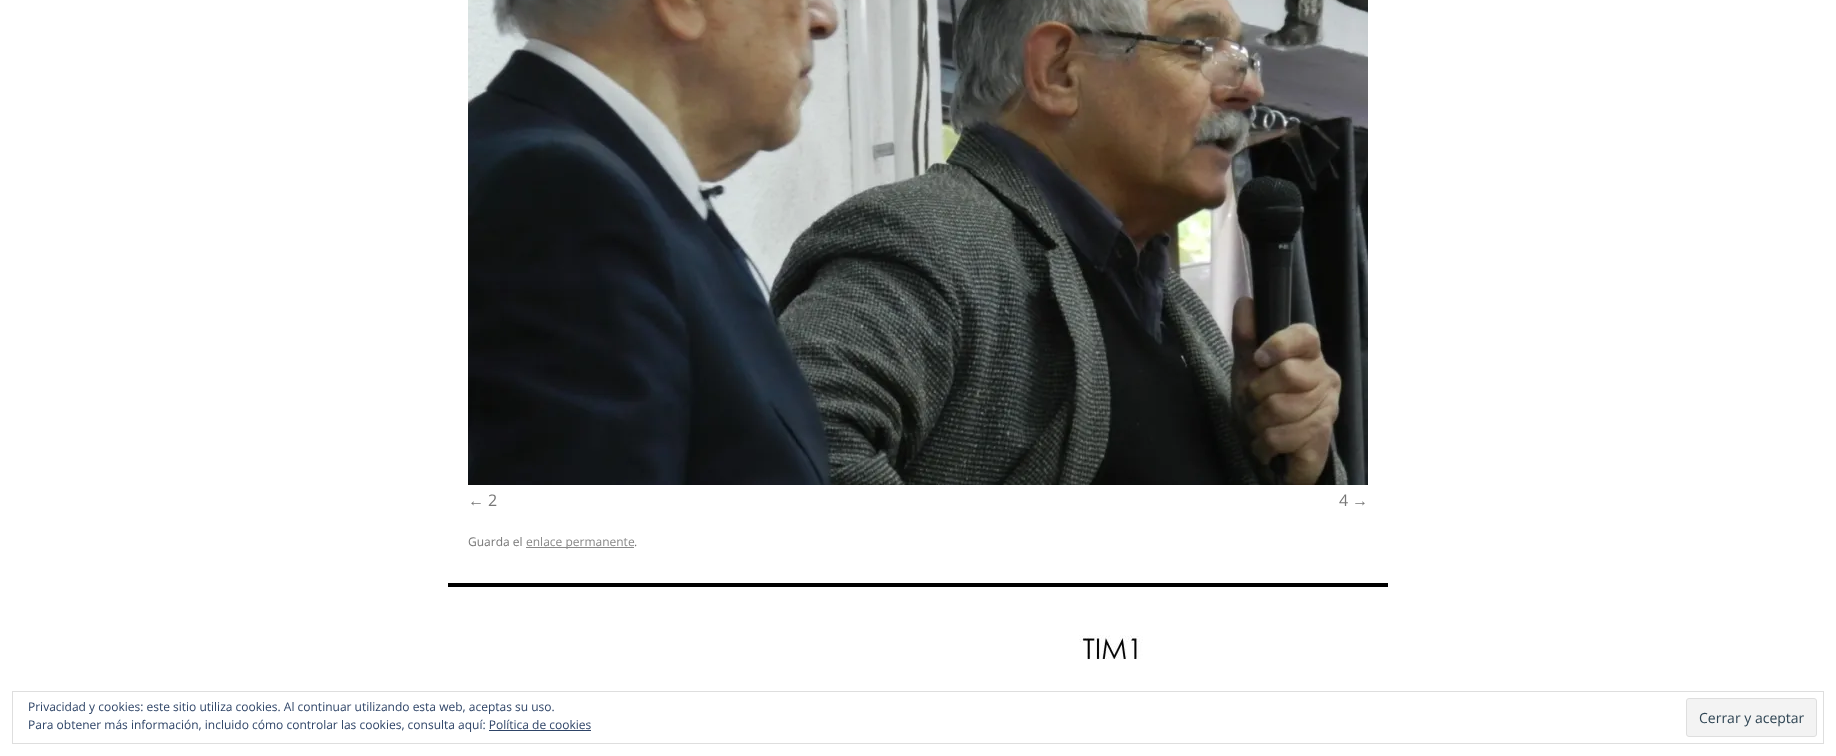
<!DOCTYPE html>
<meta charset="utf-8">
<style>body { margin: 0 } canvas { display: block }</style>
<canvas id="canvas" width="1836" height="756"></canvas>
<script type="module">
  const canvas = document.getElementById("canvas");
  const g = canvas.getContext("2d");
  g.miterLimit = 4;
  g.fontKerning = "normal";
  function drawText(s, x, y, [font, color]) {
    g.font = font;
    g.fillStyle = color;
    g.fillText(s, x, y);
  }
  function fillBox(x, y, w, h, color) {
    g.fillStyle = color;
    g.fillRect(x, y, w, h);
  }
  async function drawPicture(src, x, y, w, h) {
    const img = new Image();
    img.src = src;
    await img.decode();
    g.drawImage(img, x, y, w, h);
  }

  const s1 = ["16px Liberation Sans", "#777777"];
  const s2 = ["16px Open Sans", "#777777"];
  const s3 = ["12px Open Sans", "#777777"];
  const s4 = ["12px Open Sans", "#888888"];
  const s5 = ["12px Open Sans", "#2E4467"];
  const s6 = ["14px Open Sans", "#2E4453"];

  fillBox(0, 0, 1836, 756, "#FFFFFF");
  await drawPicture("pic1.png", 468, 0, 900, 485);
  drawText("←", 468, 506, s1);
  drawText("2", 488, 506, s2);
  drawText("4", 1339, 506, s2);
  drawText("→", 1352, 506, s1);
  drawText("Guarda el", 468, 546, s3);
  fillBox(526, 547, 108, 1, "#888888");
  drawText("enlace permanente", 526, 546, s4);
  drawText(".", 634, 546, s3);
  fillBox(448, 583, 940, 4, "#000000");
  await drawPicture("pic2.png", 1079, 635, 64, 25);
  g.strokeStyle = "#DEDEDE";
  g.strokeRect(12.5, 691.5, 1811, 52);
  drawText("Privacidad y cookies: este sitio utiliza cookies. Al continuar utilizando esta web, aceptas su uso.", 28, 711, s5);
  drawText("Para obtener más información, incluido cómo controlar las cookies, consulta aquí: Política de cookies", 28, 729, s5);
  g.fillStyle = "#F3F3F3";
  g.beginPath();
  g.roundRect(1686.5, 698.5, 130, 38, 2.5);
  g.fill();
  g.stroke();
  drawText("Cerrar y aceptar", 1699, 723, s6);
  fillBox(489, 730, 102, 1, "#2E4467");
</script>
